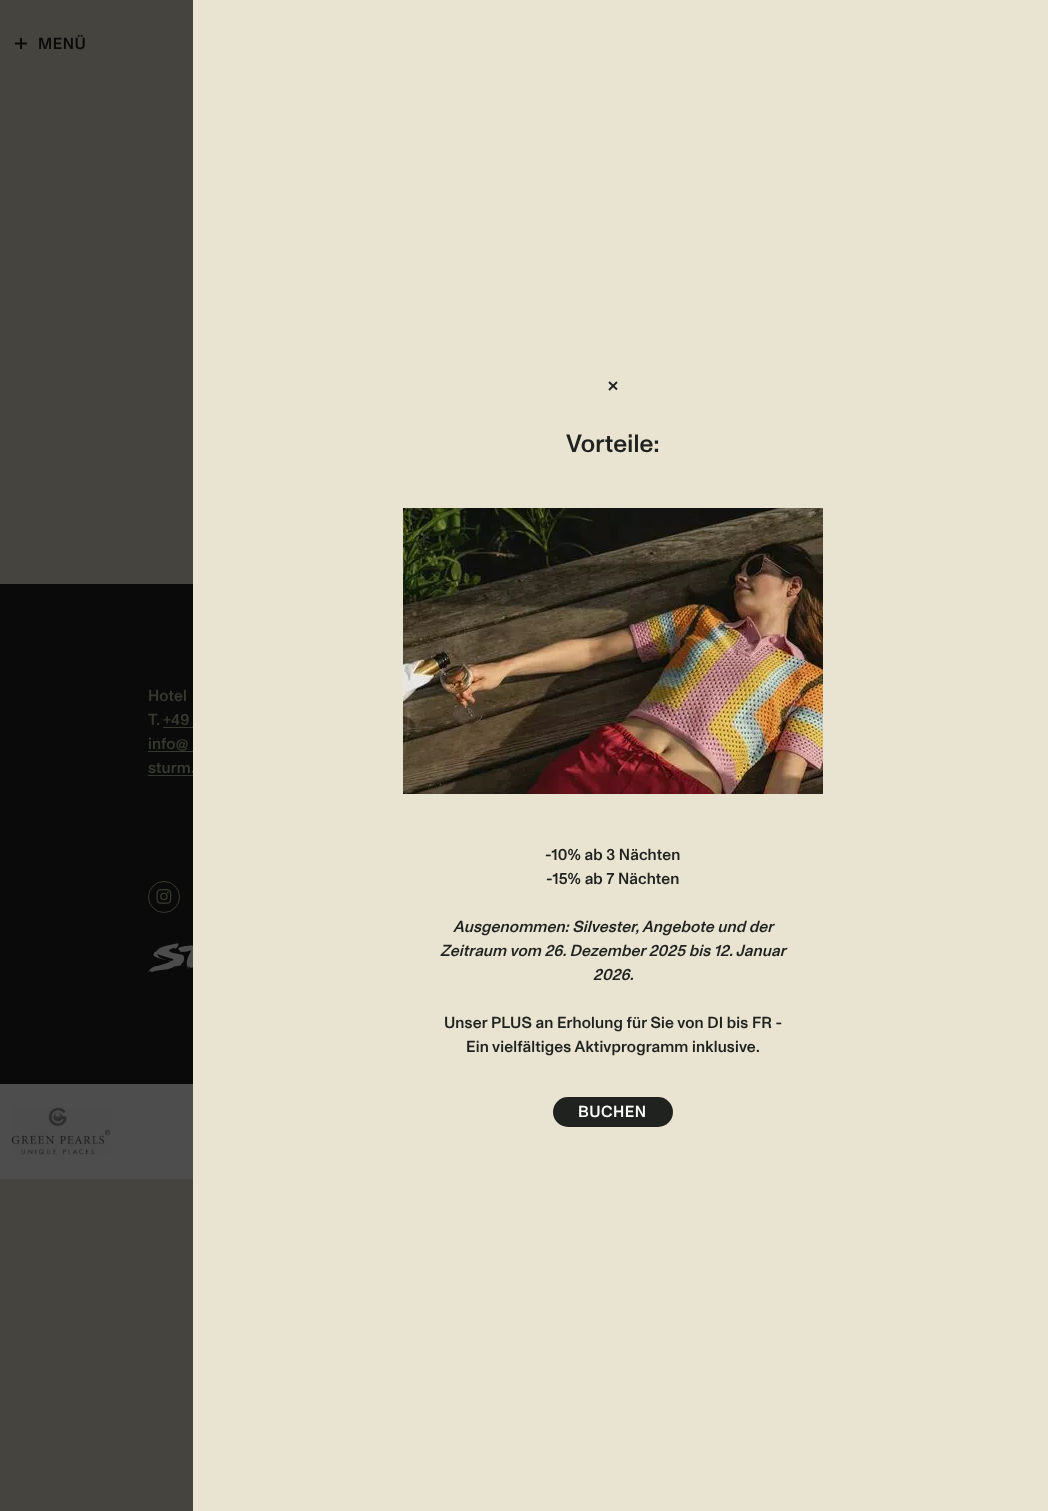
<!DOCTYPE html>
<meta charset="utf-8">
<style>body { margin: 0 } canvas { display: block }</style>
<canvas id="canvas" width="1048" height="1511"></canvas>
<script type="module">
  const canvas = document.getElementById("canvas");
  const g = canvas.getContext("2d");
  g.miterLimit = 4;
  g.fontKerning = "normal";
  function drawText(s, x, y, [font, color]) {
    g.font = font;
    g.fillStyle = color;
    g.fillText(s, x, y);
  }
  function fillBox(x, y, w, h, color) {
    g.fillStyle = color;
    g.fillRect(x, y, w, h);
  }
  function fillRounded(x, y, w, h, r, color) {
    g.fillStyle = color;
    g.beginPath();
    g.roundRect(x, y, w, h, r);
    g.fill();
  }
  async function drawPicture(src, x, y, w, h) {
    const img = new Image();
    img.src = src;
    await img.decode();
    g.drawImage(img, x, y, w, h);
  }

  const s1 = ["500 16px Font", "#090A09"];
  const s2 = ["500 16px Font", "#363931"];
  const s3 = ["500 25px Font", "#1F221E"];
  const s4 = ["500 16px Font", "#1F221E"];
  const s5 = ["italic 500 16px Font", "#1F221E"];
  const s6 = ["500 16px Font", "#FFFFFF"];

  fillBox(0, 0, 1048, 1511, "#E9E4D2");
  fillBox(0, 0, 193, 1511, "#46443F");
  g.beginPath();
  g.moveTo(15, 43.5);
  g.lineTo(27, 43.5);
  g.moveTo(21, 38);
  g.lineTo(21, 49);
  g.strokeStyle = "#090A09";
  g.lineWidth = 2;
  g.stroke();
  g.letterSpacing = "0.5px";
  drawText("MENÜ", 38, 49, s1);
  fillBox(0, 584, 193, 500, "#090A09");
  g.letterSpacing = "0.15px";
  drawText("Hotel", 148, 701, s2);
  drawText("T.", 148, 725, s2);
  g.wordSpacing = "2px";
  drawText("+49", 163, 725, s2);
  fillBox(163, 727, 30, 1, "#363931");
  g.wordSpacing = "0px";
  drawText("info@", 148, 749, s2);
  fillBox(148, 751, 45, 1, "#363931");
  drawText("sturm.", 148, 773, s2);
  fillBox(148, 775, 45, 1, "#363931");
  g.beginPath();
  g.arc(164, 897, 15.5, 0, Math.PI * 2);
  g.strokeStyle = "#363931";
  g.lineWidth = 1;
  g.stroke();
  await drawPicture("pic1.png", 156, 889, 16, 15);
  await drawPicture("pic2.png", 148, 943, 45, 30);
  fillBox(0, 1084, 193, 95, "#4D4D4D");
  await drawPicture("pic3.png", 11, 1107, 100, 48);
  fillBox(193, 770, 1, 3, "#E9E4D2");
  g.beginPath();
  g.moveTo(609, 382);
  g.lineTo(617, 389.5);
  g.moveTo(617, 382);
  g.lineTo(609, 390);
  g.strokeStyle = "#1F221E";
  g.lineWidth = 1.8;
  g.stroke();
  drawText("Vorteile:", 566, 452, s3);
  await drawPicture("pic4.png", 403, 508, 420, 286);
  drawText("-10% ab 3 Nächten", 545, 860, s4);
  drawText("-15% ab 7 Nächten", 546, 884, s4);
  drawText("Ausgenommen: Silvester, Angebote und der", 453, 932, s5);
  drawText("Zeitraum vom 26. Dezember 2025 bis 12. Januar", 440, 956, s5);
  drawText("2026.", 593, 980, s5);
  drawText("Unser PLUS an Erholung für Sie von DI bis FR -", 444, 1028, s4);
  drawText("Ein vielfältiges Aktivprogramm inklusive.", 466, 1052, s4);
  fillRounded(553, 1097, 120, 30, 15, "#1F221E");
  g.letterSpacing = "0.5px";
  drawText("BUCHEN", 578, 1117, s6);
</script>
